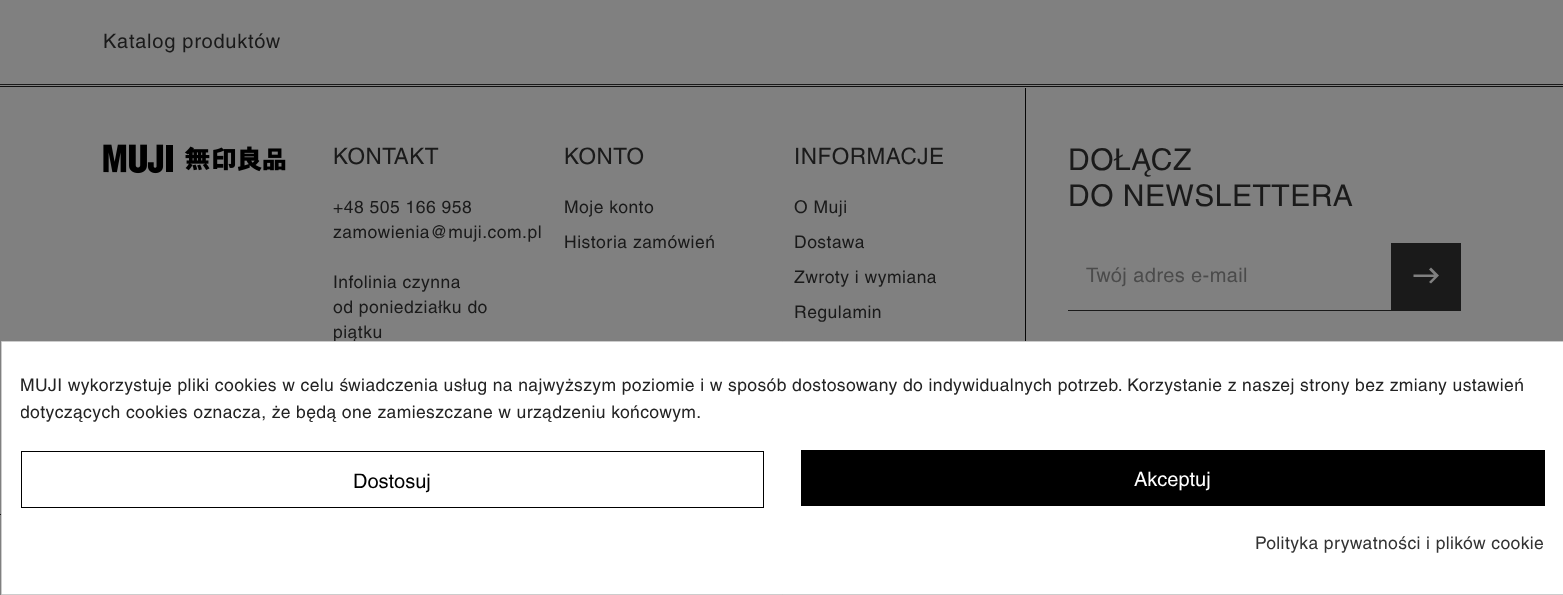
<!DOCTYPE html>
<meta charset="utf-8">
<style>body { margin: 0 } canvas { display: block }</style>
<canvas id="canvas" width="1563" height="595"></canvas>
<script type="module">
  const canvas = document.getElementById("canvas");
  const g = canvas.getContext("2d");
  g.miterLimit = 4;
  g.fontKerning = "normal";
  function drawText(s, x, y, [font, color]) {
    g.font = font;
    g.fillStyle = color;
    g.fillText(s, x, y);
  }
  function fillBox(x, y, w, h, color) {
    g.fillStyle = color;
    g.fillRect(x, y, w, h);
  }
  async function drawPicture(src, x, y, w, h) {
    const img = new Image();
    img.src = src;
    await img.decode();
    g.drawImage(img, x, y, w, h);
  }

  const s1 = ["20px Helvetica", "#1A1A1A"];
  const s2 = ["22.5px Helvetica", "#1A1A1A"];
  const s3 = ["17.5px Helvetica", "#1A1A1A"];
  const s4 = ["30px Helvetica", "#1A1A1A"];
  const s5 = ["20px Helvetica", "#4B4B4B"];
  const s6 = ["17.5px Helvetica", "#232323"];
  const s7 = ["20px Helvetica", "#000000"];
  const s8 = ["20px Helvetica", "#FFFFFF"];
  const s9 = ["17.5px Helvetica", "#333333"];

  fillBox(0, 0, 1563, 595, "#808080");
  fillBox(0, 84, 1563, 1, "#1A1A1A");
  g.letterSpacing = "0.75px";
  drawText("Katalog produktów", 103, 48, s1);
  fillBox(0, 86, 1563, 1, "#111111");
  fillBox(0, 514, 1, 1, "#111111");
  await drawPicture("pic1.png", 103, 144, 183, 30);
  g.letterSpacing = "0.5px";
  drawText("KONTAKT", 333, 164, s2);
  drawText("+48 505 166 958", 333, 213, s3);
  drawText("zamowienia@muji.com.pl", 333, 238, s3);
  drawText("Infolinia czynna", 333, 288, s3);
  drawText("od poniedziałku do", 333, 313, s3);
  drawText("piątku", 333, 338, s3);
  drawText("KONTO", 564, 164, s2);
  drawText("Moje konto", 564, 213, s3);
  drawText("Historia zamówień", 564, 248, s3);
  drawText("INFORMACJE", 794, 164, s2);
  drawText("O Muji", 794, 213, s3);
  drawText("Dostawa", 794, 248, s3);
  drawText("Zwroty i wymiana", 794, 283, s3);
  drawText("Regulamin", 794, 318, s3);
  fillBox(1025, 88, 1, 253, "#070707");
  drawText("DOŁĄCZ", 1068, 170, s4);
  drawText("DO NEWSLETTERA", 1068, 206, s4);
  fillBox(1068, 310, 393, 1, "#1A1A1A");
  g.letterSpacing = "0.4px";
  drawText("Twój adres e-mail", 1086, 282, s5);
  fillBox(1391, 243, 70, 67, "#1A1A1A");
  g.fillStyle = "#808080";
  g.beginPath();
  g.moveTo(1434, 277);
  g.lineTo(1413.5, 277);
  g.lineTo(1413.5, 274.5);
  g.lineTo(1434, 274.5);
  g.lineTo(1429, 269.5);
  g.lineTo(1431, 267.5);
  g.lineTo(1439, 275.5);
  g.lineTo(1431, 283.5);
  g.lineTo(1429, 282);
  g.closePath();
  g.fill();
  g.fillStyle = "#FFFFFF";
  g.beginPath();
  g.rect(1.5, 341.5, 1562, 253);
  g.fill();
  g.strokeStyle = "#CCCCCC";
  g.stroke();
  drawText("MUJI wykorzystuje pliki cookies w celu świadczenia usług na najwyższym poziomie i w sposób dostosowany do indywidualnych potrzeb. Korzystanie z naszej strony bez zmiany ustawień", 20, 391, s6);
  g.save();
  g.beginPath();
  g.rect(21, 373, 1524, 52);
  g.clip();
  drawText("dotyczących cookies oznacza, że będą one zamieszczane w urządzeniu końcowym.", 20, 418, s6);
  g.restore();
  g.strokeStyle = "#000000";
  g.strokeRect(21.5, 451.5, 742, 56);
  g.letterSpacing = "0px";
  drawText("Dostosuj", 353, 488, s7);
  fillBox(801, 450, 744, 56, "#000000");
  drawText("Akceptuj", 1134, 486, s8);
  g.letterSpacing = "0.4px";
  drawText("Polityka prywatności i plików cookie", 1255, 549, s9);
</script>
